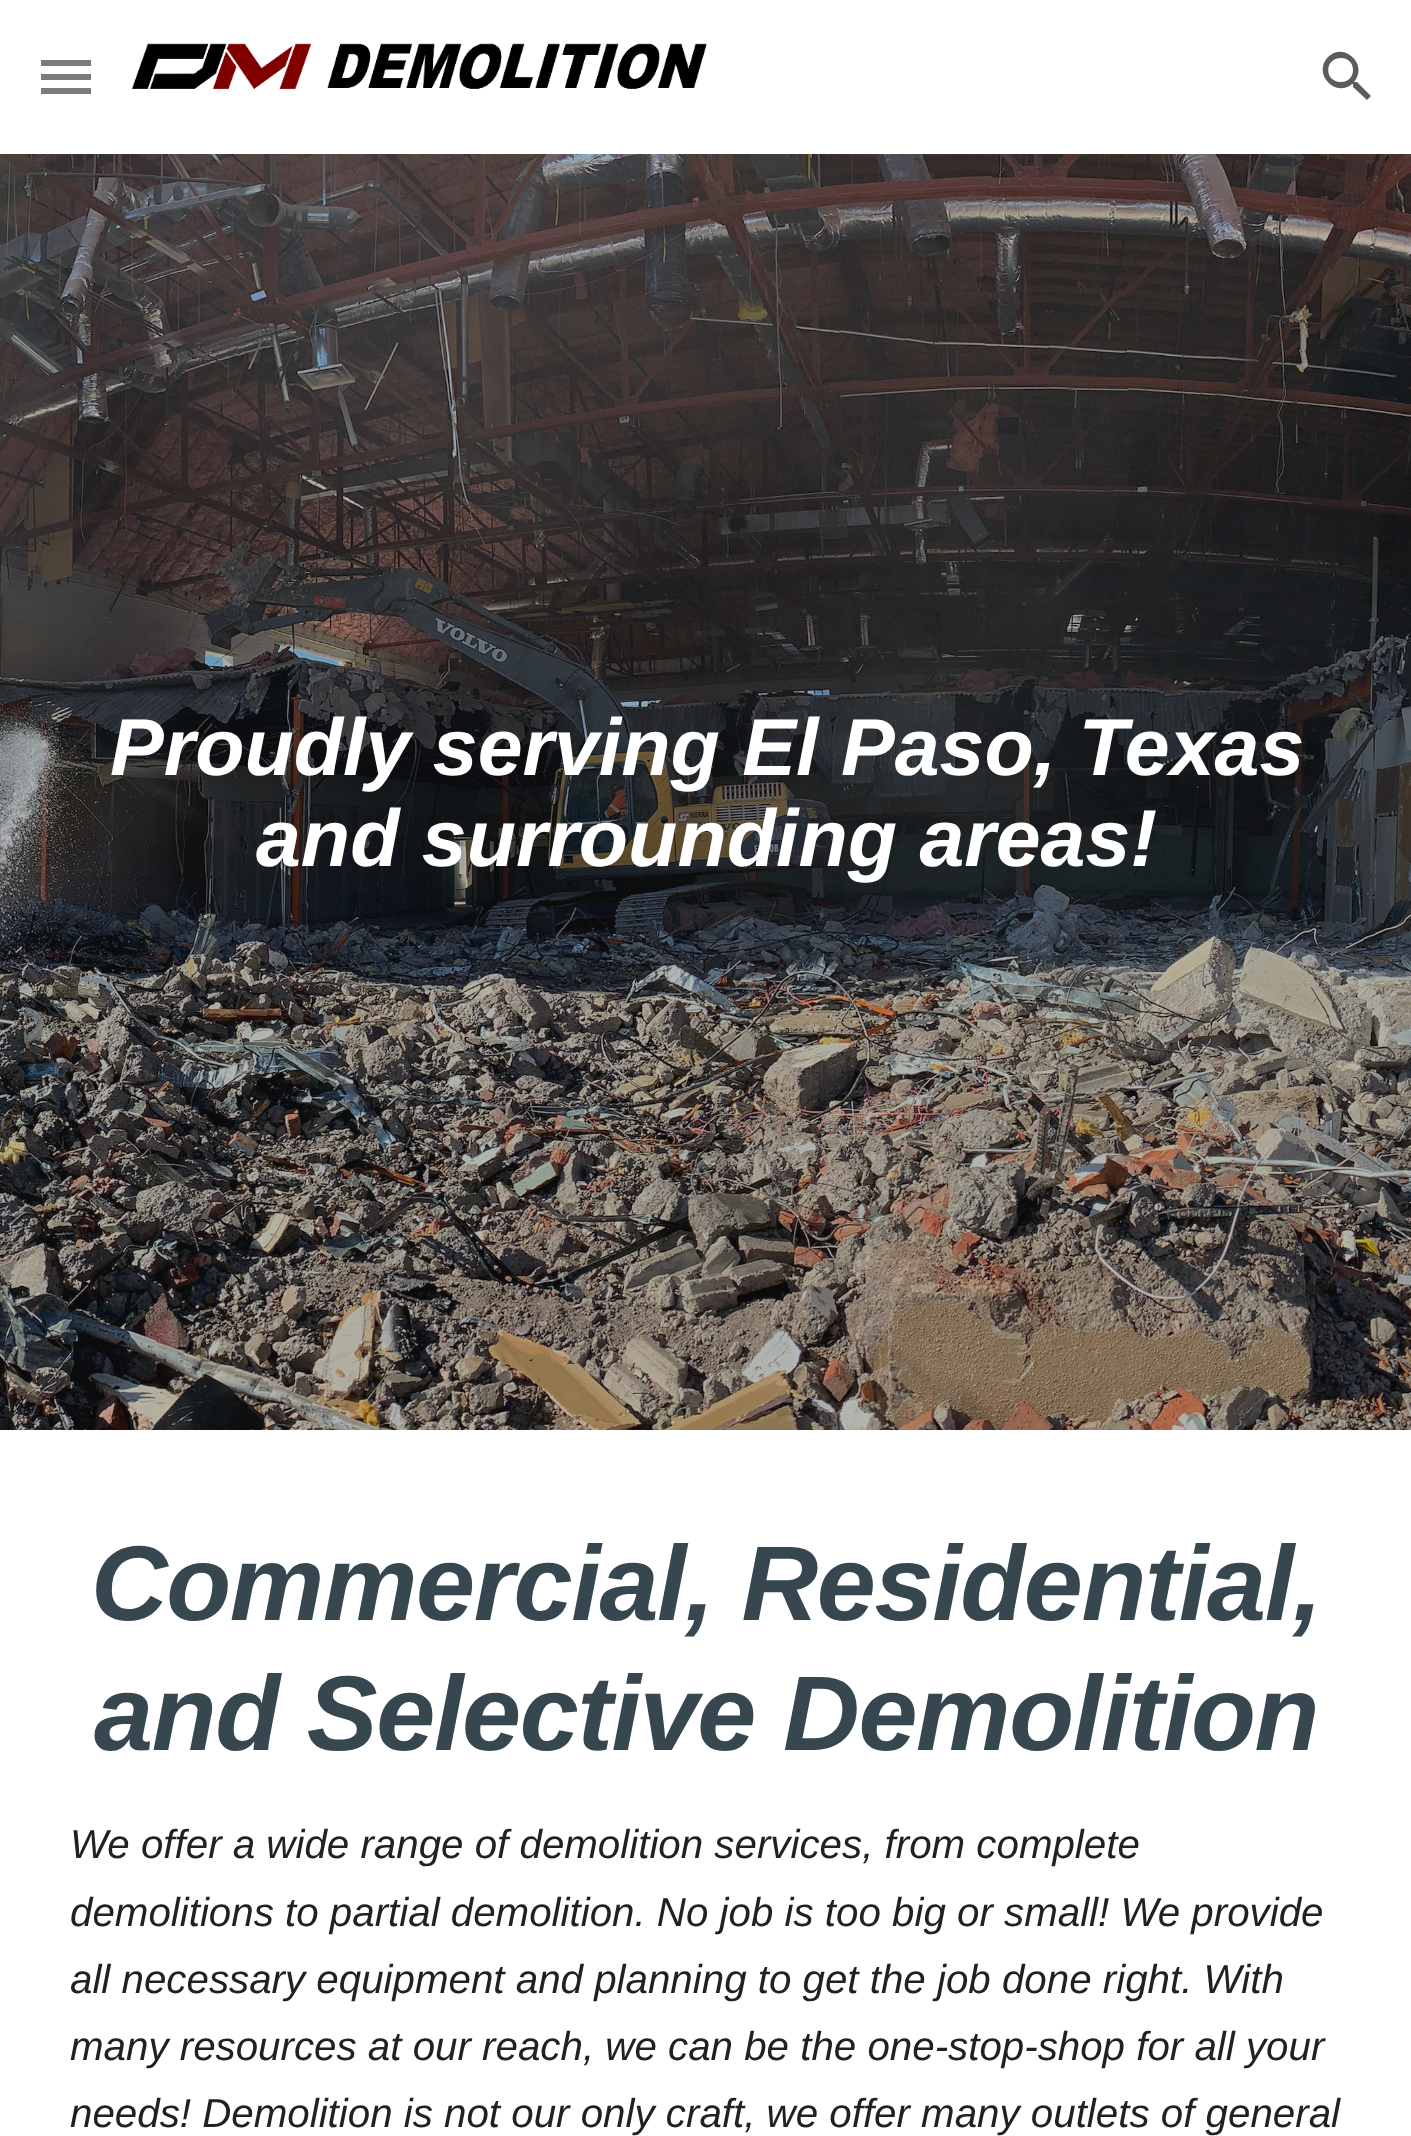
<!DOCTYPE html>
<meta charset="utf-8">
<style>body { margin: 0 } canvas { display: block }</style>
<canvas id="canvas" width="1411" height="2136"></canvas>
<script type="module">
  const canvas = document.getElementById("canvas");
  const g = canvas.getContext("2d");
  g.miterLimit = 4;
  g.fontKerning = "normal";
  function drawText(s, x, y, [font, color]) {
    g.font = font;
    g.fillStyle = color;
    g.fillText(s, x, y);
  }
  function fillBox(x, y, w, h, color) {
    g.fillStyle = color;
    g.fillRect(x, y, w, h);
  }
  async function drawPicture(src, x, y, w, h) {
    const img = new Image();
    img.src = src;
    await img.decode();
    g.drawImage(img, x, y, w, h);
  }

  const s1 = ["italic bold 80.7px Liberation Sans", "#FFFFFF"];
  const s2 = ["italic bold 106.25px Liberation Sans", "#37474F"];
  const s3 = ["italic 40.3px Liberation Sans", "#212121"];

  fillBox(0, 0, 1411, 2136, "#FFFFFF");
  fillBox(41, 60, 50, 6, "#696969");
  fillBox(41, 74, 50, 6, "#696969");
  fillBox(41, 88, 50, 6, "#696969");
  fillBox(41, 60, 50, 34, "rgba(255, 255, 255, 0.12)");
  await drawPicture("pic1.png", 132, 43, 575, 47);
  g.fillStyle = "#5C5C5C";
  g.beginPath();
  g.moveTo(1357, 82);
  g.lineTo(1355, 82);
  g.lineTo(1354, 82);
  g.bezierCurveTo(1369, 65, 1344, 41, 1328, 57);
  g.bezierCurveTo(1312, 74, 1336, 98, 1352, 84);
  g.lineTo(1353, 84);
  g.lineTo(1353, 87);
  g.lineTo(1367, 100);
  g.lineTo(1371, 96);
  g.closePath();
  g.moveTo(1341, 82);
  g.bezierCurveTo(1324, 82, 1324, 58, 1341, 58);
  g.bezierCurveTo(1357, 58, 1357, 82, 1341, 82);
  g.closePath();
  g.fill();
  await drawPicture("pic2.png", 0, 154, 1411, 1276);
  drawText("Proudly serving El Paso, Texas", 110, 775, s1);
  drawText("and surrounding areas!", 256, 866, s1);
  g.letterSpacing = "-1.4px";
  drawText("Commercial, Residential,", 91, 1620, s2);
  drawText("and Selective Demolition", 94, 1750, s2);
  g.letterSpacing = "0px";
  drawText("We offer a wide range of demolition services, from complete", 70, 1858, s3);
  drawText("demolitions to partial demolition. No job is too big or small! We provide", 70, 1926, s3);
  drawText("all necessary equipment and planning to get the job done right. With", 70, 1993, s3);
  drawText("many resources at our reach, we can be the one-stop-shop for all your", 70, 2060, s3);
  drawText("needs! Demolition is not our only craft, we offer many outlets of general", 70, 2127, s3);
</script>
